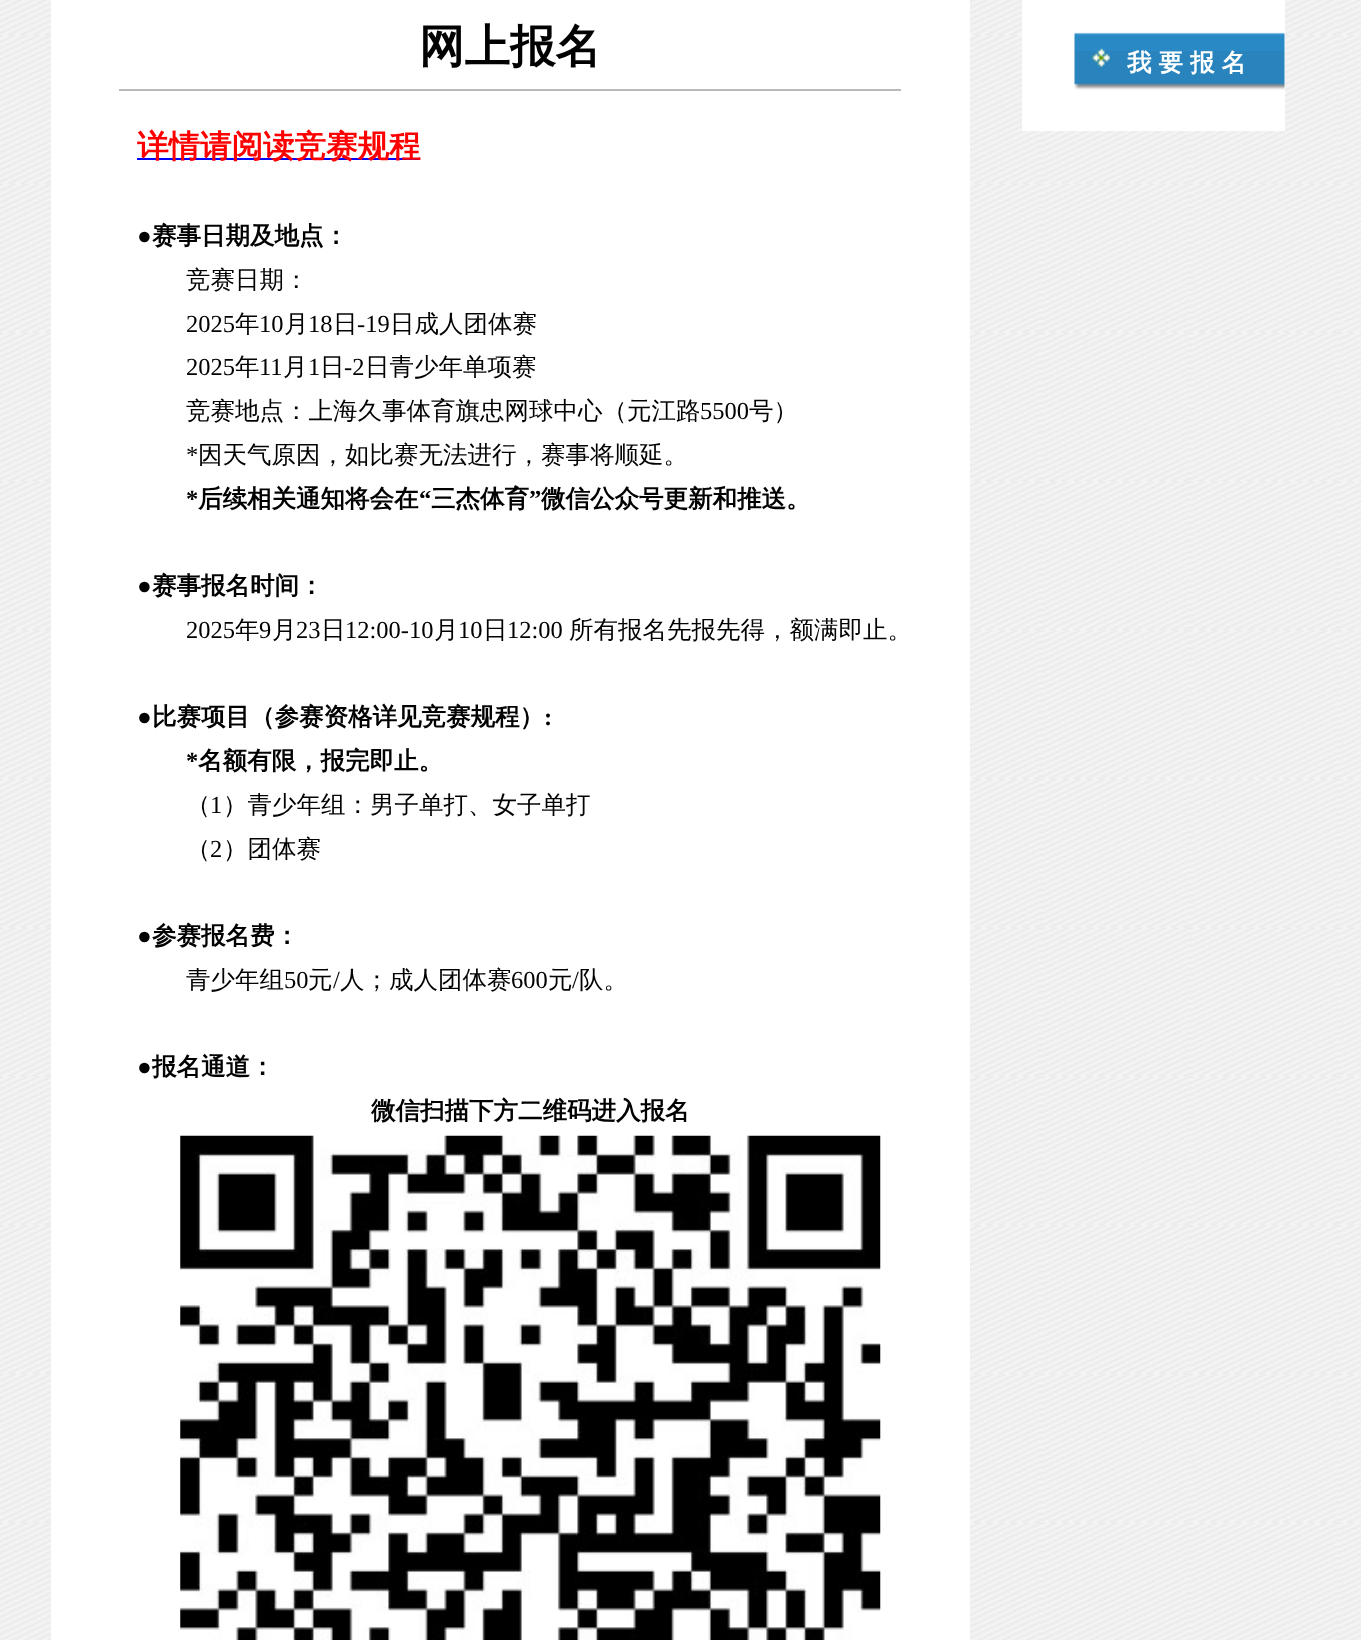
<!DOCTYPE html>
<meta charset="utf-8">
<style>body { margin: 0 } canvas { display: block }</style>
<canvas id="canvas" width="1361" height="1640"></canvas>
<script type="module">
  const canvas = document.getElementById("canvas");
  const g = canvas.getContext("2d");
  g.miterLimit = 4;
  g.fontKerning = "normal";
  function drawText(s, x, y, [font, color]) {
    g.font = font;
    g.fillStyle = color;
    g.fillText(s, x, y);
  }
  function fillBox(x, y, w, h, color) {
    g.fillStyle = color;
    g.fillRect(x, y, w, h);
  }
  async function drawPicture(src, x, y, w, h) {
    const img = new Image();
    img.src = src;
    await img.decode();
    g.drawImage(img, x, y, w, h);
  }

  const s1 = ["bold 45.5px WenQuanYi Zen Hei", "#010101"];
  const s2 = ["bold 31.5px WenQuanYi Zen Hei", "#FF0000"];
  const s3 = ["bold 24.5px Liberation Serif", "#010101"];
  const s4 = ["bold 24.5px WenQuanYi Zen Hei", "#010101"];
  const s5 = ["500 24.5px WenQuanYi Zen Hei", "#010101"];
  const s6 = ["24.5px Liberation Serif", "#010101"];
  const s7 = ["bold 24.5px WenQuanYi Zen Hei", "#FFFFFF"];

  fillBox(0, 0, 1361, 1640, "#FFFFFF");
  await drawPicture("pic1.png", 0, 0, 1361, 1640);
  fillBox(51, 0, 919, 1640, "#FFFFFF");
  drawText("网上报名", 419, 62, s1);
  fillBox(119, 89, 782, 2, "#B9B9B9");
  fillBox(137, 158, 283, 2, "#0000FF");
  drawText("详情请阅读竞赛规程", 137, 157, s2);
  drawText("●", 137, 244, s3);
  drawText("赛事日期及地点：", 152, 244, s4);
  drawText("竞赛日期：", 186, 288, s5);
  drawText("2025", 186, 332, s6);
  drawText("年", 235, 332, s5);
  drawText("10", 259, 332, s6);
  drawText("月", 284, 332, s5);
  drawText("18", 308, 332, s6);
  drawText("日", 333, 332, s5);
  drawText("-19", 357, 332, s6);
  drawText("日成人团体赛", 390, 332, s5);
  drawText("2025", 186, 375, s6);
  drawText("年", 235, 375, s5);
  drawText("11", 259, 375, s6);
  drawText("月", 283, 375, s5);
  drawText("1", 308, 375, s6);
  drawText("日", 320, 375, s5);
  drawText("-2", 344, 375, s6);
  drawText("日青少年单项赛", 365, 375, s5);
  drawText("竞赛地点：上海久事体育旗忠网球中心（元江路", 186, 419, s5);
  drawText("5500", 700, 419, s6);
  drawText("号）", 749, 419, s5);
  drawText("*", 186, 463, s6);
  drawText("因天气原因，如比赛无法进行，赛事将顺延。", 198, 463, s5);
  drawText("*", 186, 507, s3);
  drawText("后续相关通知将会在", 198, 507, s4);
  drawText("“", 419, 507, s3);
  drawText("三杰体育", 431, 507, s4);
  drawText("”", 529, 507, s3);
  drawText("微信公众号更新和推送。", 541, 507, s4);
  drawText("●", 137, 594, s3);
  drawText("赛事报名时间：", 152, 594, s4);
  drawText("2025", 186, 638, s6);
  drawText("年", 235, 638, s5);
  drawText("9", 259, 638, s6);
  drawText("月", 272, 638, s5);
  drawText("23", 296, 638, s6);
  drawText("日", 321, 638, s5);
  drawText("12:00-10", 345, 638, s6);
  drawText("月", 434, 638, s5);
  drawText("10", 458, 638, s6);
  drawText("日", 483, 638, s5);
  drawText("12:00", 507, 638, s6);
  drawText("所有报名先报先得，额满即止。", 569, 638, s5);
  drawText("●", 137, 725, s3);
  drawText("比赛项目（参赛资格详见竞赛规程）", 152, 725, s4);
  drawText(":", 544, 725, s3);
  drawText("*", 186, 769, s3);
  drawText("名额有限，报完即止。", 198, 769, s4);
  drawText("（", 186, 813, s5);
  drawText("1", 210, 813, s6);
  drawText("）青少年组：男子单打、女子单打", 223, 813, s5);
  drawText("（", 186, 857, s5);
  drawText("2", 210, 857, s6);
  drawText("）团体赛", 223, 857, s5);
  drawText("●", 137, 944, s3);
  drawText("参赛报名费：", 152, 944, s4);
  drawText("青少年组", 186, 988, s5);
  drawText("50", 284, 988, s6);
  drawText("元", 308, 988, s5);
  drawText("/", 333, 988, s6);
  drawText("人；成人团体赛", 340, 988, s5);
  drawText("600", 511, 988, s6);
  drawText("元", 548, 988, s5);
  drawText("/", 572, 988, s6);
  drawText("队。", 579, 988, s5);
  drawText("●", 137, 1075, s3);
  drawText("报名通道：", 152, 1075, s4);
  drawText("微信扫描下方二维码进入报名", 371, 1119, s4);
  await drawPicture("pic2.png", 180, 1135, 701, 505);
  fillBox(1022, 0, 263, 131, "#FFFFFF");
  await drawPicture("pic3.png", 1074, 32, 211, 58);
  g.letterSpacing = "7px";
  drawText("我要报名", 1127, 71, s7);
</script>
